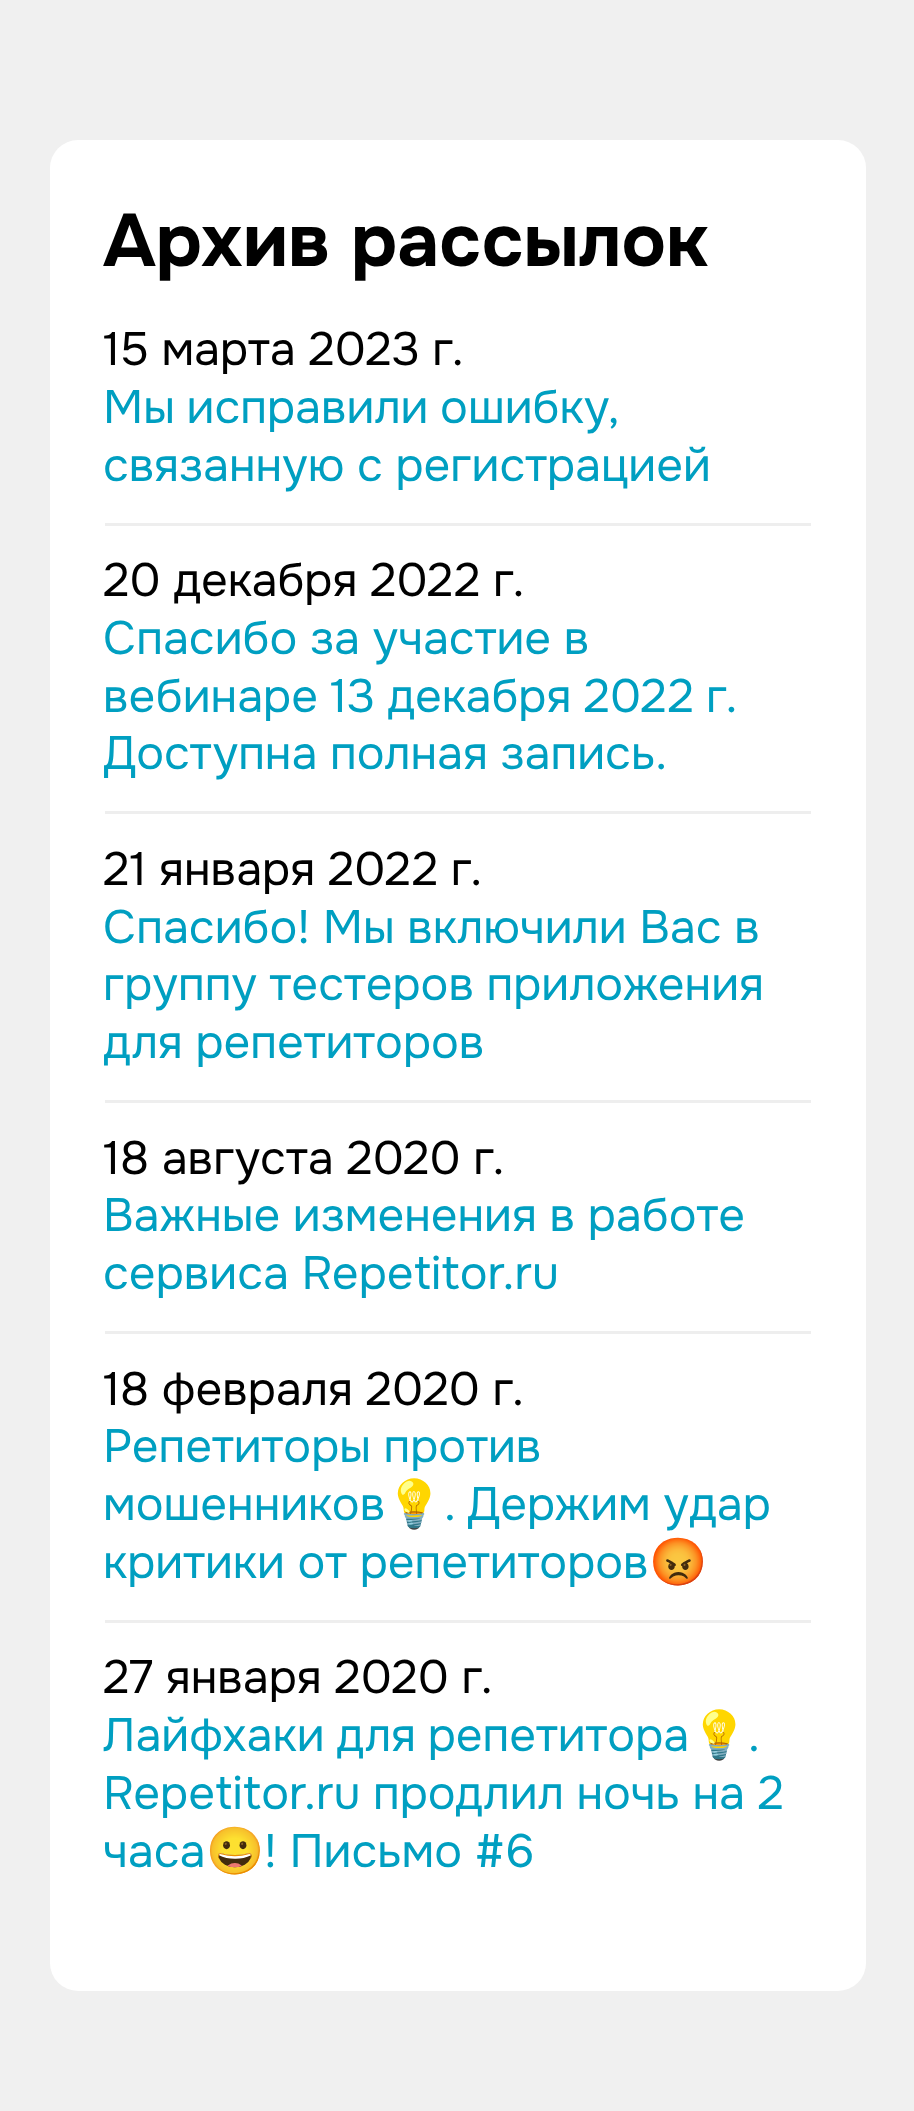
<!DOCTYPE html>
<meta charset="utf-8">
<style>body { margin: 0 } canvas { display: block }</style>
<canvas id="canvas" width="914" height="2111"></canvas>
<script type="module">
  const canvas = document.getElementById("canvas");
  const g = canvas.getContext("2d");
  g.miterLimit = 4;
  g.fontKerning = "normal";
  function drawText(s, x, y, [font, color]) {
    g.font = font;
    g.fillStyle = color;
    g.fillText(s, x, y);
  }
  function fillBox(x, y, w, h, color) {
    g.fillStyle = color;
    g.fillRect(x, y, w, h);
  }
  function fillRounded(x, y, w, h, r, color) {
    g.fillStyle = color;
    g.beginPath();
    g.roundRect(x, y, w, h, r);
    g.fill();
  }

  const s1 = ["bold 74.25px Onest", "#000000"];
  const s2 = ["46.75px Onest", "#000000"];
  const s3 = ["46.75px Onest", "#009FC1"];
  const s4 = ["46.75px Noto Color Emoji", "#009FC1"];

  fillBox(0, 0, 914, 2111, "#F0F0F0");
  fillRounded(50, 140, 816, 1851, 28, "#FFFFFF");
  drawText("Архив рассылок", 103, 266, s1);
  drawText("15 марта 2023 г.", 103, 365, s2);
  fillBox(105, 523, 706, 3, "#EEEEEE");
  g.wordSpacing = "-1px";
  drawText("Мы исправили ошибку,", 103, 423, s3);
  g.wordSpacing = "0px";
  drawText("связанную с регистрацией", 103, 481, s3);
  drawText("20 декабря 2022 г.", 103, 596, s2);
  fillBox(105, 811, 706, 3, "#EEEEEE");
  drawText("Спасибо за участие в", 103, 654, s3);
  g.wordSpacing = "-0.5px";
  drawText("вебинаре 13 декабря 2022 г.", 103, 712, s3);
  g.wordSpacing = "0px";
  drawText("Доступна полная запись.", 103, 769, s3);
  drawText("21 января 2022 г.", 103, 885, s2);
  fillBox(105, 1100, 706, 3, "#EEEEEE");
  drawText("Спасибо! Мы включили Вас в", 103, 943, s3);
  drawText("группу тестеров приложения", 103, 1000, s3);
  drawText("для репетиторов", 103, 1058, s3);
  drawText("18 августа 2020 г.", 103, 1174, s2);
  fillBox(105, 1331, 706, 3, "#EEEEEE");
  drawText("Важные изменения в работе", 103, 1231, s3);
  drawText("сервиса Repetitor.ru", 103, 1289, s3);
  drawText("18 февраля 2020 г.", 103, 1405, s2);
  fillBox(105, 1620, 706, 3, "#EEEEEE");
  drawText("Репетиторы против", 103, 1462, s3);
  drawText("мошенников", 103, 1520, s3);
  drawText("💡", 385, 1520, s4);
  drawText(". Держим удар", 444, 1520, s3);
  drawText("критики от репетиторов", 103, 1578, s3);
  drawText("😡", 649, 1578, s4);
  drawText("27 января 2020 г.", 103, 1693, s2);
  g.wordSpacing = "-1px";
  drawText("Лайфхаки для репетитора", 103, 1751, s3);
  g.wordSpacing = "0px";
  drawText("💡", 690, 1751, s4);
  drawText(".", 748, 1751, s3);
  drawText("Repetitor.ru продлил ночь на 2", 103, 1809, s3);
  drawText("часа", 103, 1867, s3);
  drawText("😀", 206, 1867, s4);
  drawText("! Письмо #6", 264, 1867, s3);
</script>
